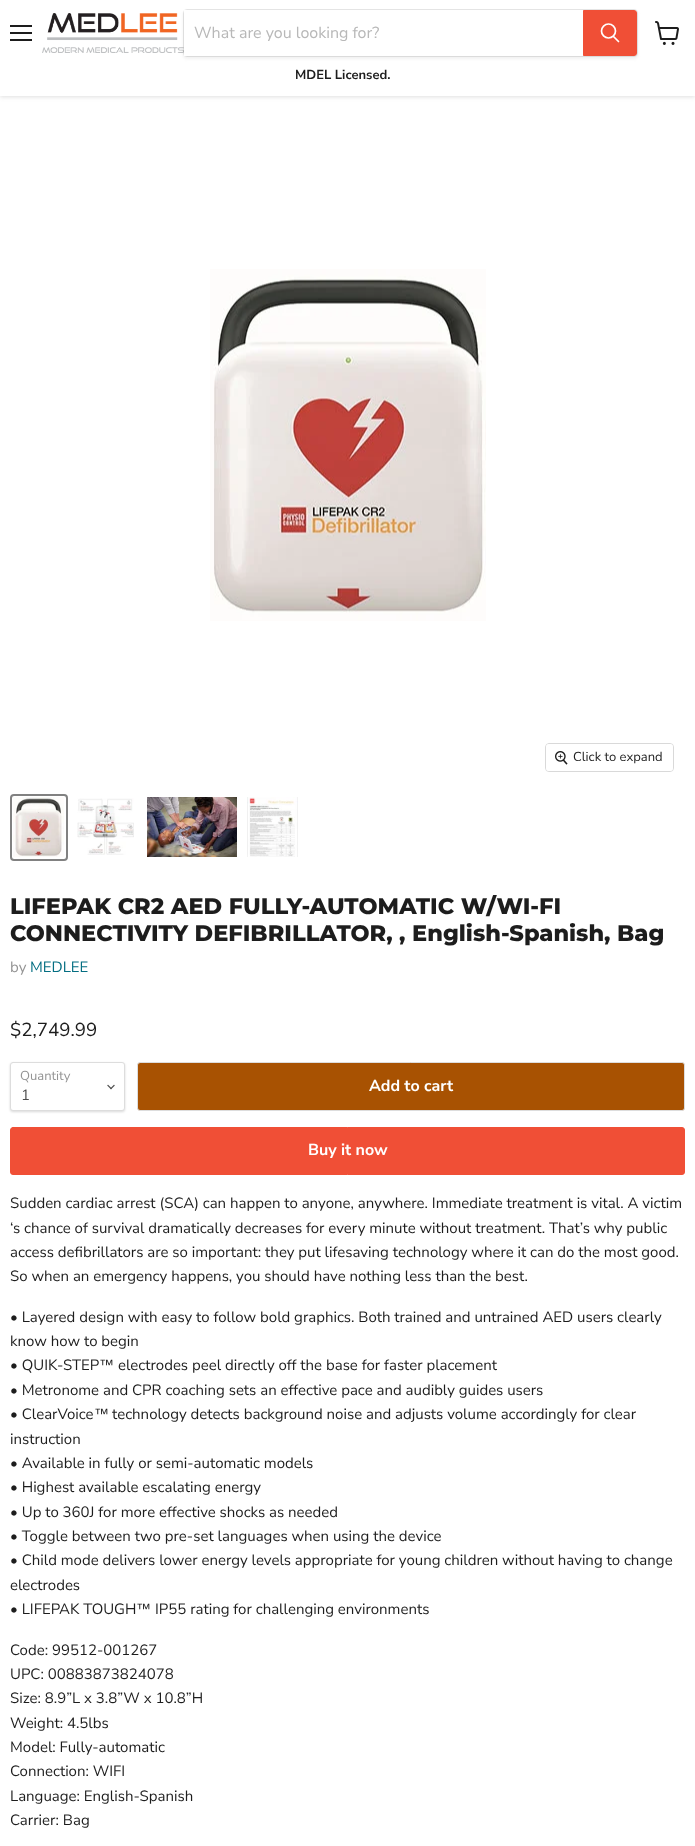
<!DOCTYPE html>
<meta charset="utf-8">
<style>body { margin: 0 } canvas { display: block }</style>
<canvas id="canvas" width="695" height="1846"></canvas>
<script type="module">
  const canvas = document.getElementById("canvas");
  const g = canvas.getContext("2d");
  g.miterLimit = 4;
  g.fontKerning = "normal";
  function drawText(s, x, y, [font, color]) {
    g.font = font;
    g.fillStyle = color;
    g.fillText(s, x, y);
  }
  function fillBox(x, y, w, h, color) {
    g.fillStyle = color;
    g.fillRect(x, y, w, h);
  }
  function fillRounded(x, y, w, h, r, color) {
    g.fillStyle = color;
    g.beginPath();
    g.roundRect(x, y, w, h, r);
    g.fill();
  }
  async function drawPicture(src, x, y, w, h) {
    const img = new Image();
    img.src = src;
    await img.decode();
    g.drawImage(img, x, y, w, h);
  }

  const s1 = ["16px Nunito Sans", "#B8B8B8"];
  const s2 = ["bold 13px Nunito Sans", "#1D1D1D"];
  const s3 = ["13px Nunito Sans", "#1D1D1D"];
  const s4 = ["800 22.5px Montserrat", "#1D1D1D"];
  const s5 = ["15px Nunito Sans", "#949494"];
  const s6 = ["15px Nunito Sans", "#046E82"];
  const s7 = ["18.75px Nunito Sans", "#1D1D1D"];
  const s8 = ["13px Nunito Sans", "#949494"];
  const s9 = ["15px Nunito Sans", "#4D4D4D"];
  const s10 = ["bold 16px Nunito Sans", "#FFFFFF"];
  const s11 = ["15px Nunito Sans", "#1D1D1D"];
  const s12 = ["15px Liberation Sans", "#1D1D1D"];

  fillBox(0, 0, 695, 1846, "#FFFFFF");
  g.fillStyle = "rgba(128, 128, 128, 0.25)";
  g.filter = "blur(2px)";
  g.beginPath();
  g.rect(0, 1, 695, 96);
  g.fill();
  g.filter = "none";
  fillBox(0, 0, 695, 96, "#FFFFFF");
  fillBox(10, 25, 22, 2, "#1D1D1D");
  fillBox(10, 32, 22, 2, "#1D1D1D");
  fillBox(10, 39, 22, 2, "#1D1D1D");
  await drawPicture("pic1.png", 42, 13, 142, 40);
  g.fillStyle = "rgba(128, 128, 128, 0.11)";
  g.filter = "blur(1.5px)";
  g.beginPath();
  g.roundRect(183, 11, 455, 48, 4);
  g.fill();
  g.filter = "none";
  g.beginPath();
  g.roundRect(183.5, 9.5, 454, 47, 3.5);
  g.strokeStyle = "rgba(128, 128, 128, 0.2)";
  g.stroke();
  fillBox(184, 10, 399, 46, "#FFFFFF");
  drawText("What are you looking for?", 194, 38, s1);
  g.fillStyle = "#F04F36";
  g.beginPath();
  g.roundRect(583.5, 10.5, 53, 45, [0, 2.5, 2.5, 0]);
  g.fill();
  g.strokeStyle = "#F04F36";
  g.stroke();
  g.beginPath();
  g.moveTo(618.5, 41.5);
  g.lineTo(613.5, 36.5);
  g.strokeStyle = "#FFFFFF";
  g.lineWidth = 1.7;
  g.lineCap = "round";
  g.stroke();
  g.beginPath();
  g.arc(608.5, 31, 7, 0, Math.PI * 2);
  g.stroke();
  drawText("MDEL Licensed.", 295, 79, s2);
  await drawPicture("pic2.png", 655, 21, 24, 24);
  await drawPicture("pic3.png", 210, 269, 276, 352);
  g.beginPath();
  g.roundRect(545.5, 743.5, 128, 28, 3.5);
  g.strokeStyle = "#D9D9D9";
  g.lineWidth = 1;
  g.stroke();
  fillRounded(546, 744, 127, 27, 3, "rgba(255, 255, 255, 0.9)");
  await drawPicture("pic4.png", 555, 751, 13, 14);
  drawText("Click to expand", 573, 761, s3);
  g.beginPath();
  g.roundRect(11, 795, 56, 65, 3);
  g.strokeStyle = "#818181";
  g.lineWidth = 2;
  g.stroke();
  await drawPicture("pic5.png", 13, 797, 51, 60);
  await drawPicture("pic6.png", 77, 798, 57, 57);
  await drawPicture("pic7.png", 147, 797, 90, 60);
  await drawPicture("pic8.png", 247, 797, 51, 60);
  drawText("LIFEPAK CR2 AED FULLY-AUTOMATIC W/WI-FI", 10, 914, s4);
  drawText("CONNECTIVITY DEFIBRILLATOR, , English-Spanish, Bag", 10, 941, s4);
  drawText("by", 10, 972, s5);
  drawText("MEDLEE", 30, 972, s6);
  drawText("$2,749.99", 10, 1036, s7);
  g.fillStyle = "rgba(0, 0, 0, 0.15)";
  g.filter = "blur(1px)";
  g.beginPath();
  g.roundRect(10, 1063, 115, 49, 3);
  g.fill();
  g.filter = "none";
  g.fillStyle = "#FFFFFF";
  g.beginPath();
  g.roundRect(10.5, 1062.5, 114, 48, 2.5);
  g.fill();
  g.strokeStyle = "#DDDDDD";
  g.lineWidth = 1;
  g.stroke();
  drawText("Quantity", 20, 1080, s8);
  await drawPicture("pic9.png", 107, 1084, 8, 6);
  drawText("1", 21, 1100, s9);
  g.fillStyle = "#A85202";
  g.beginPath();
  g.roundRect(137.5, 1062.5, 547, 48, 2.5);
  g.fill();
  g.stroke();
  drawText("Add to cart", 369, 1091, s10);
  g.fillStyle = "#F04F36";
  g.beginPath();
  g.roundRect(10.5, 1127.5, 674, 47, 2.5);
  g.fill();
  g.strokeStyle = "#F04F36";
  g.stroke();
  drawText("Buy it now", 308, 1155, s10);
  drawText("Sudden cardiac arrest (SCA) can happen to anyone, anywhere. Immediate treatment is vital. A victim", 10, 1208, s11);
  drawText("‘s chance of survival dramatically decreases for every minute without treatment. That’s why public", 10, 1233, s11);
  drawText("access defibrillators are so important: they put lifesaving technology where it can do the most good.", 10, 1257, s11);
  drawText("So when an emergency happens, you should have nothing less than the best.", 10, 1281, s11);
  drawText("• Layered design with easy to follow bold graphics. Both trained and untrained AED users clearly", 10, 1322, s11);
  drawText("know how to begin", 10, 1346, s11);
  drawText("• QUIK-STEP", 10, 1370, s11);
  drawText("™", 99, 1370, s12);
  drawText("electrodes peel directly off the base for faster placement", 118, 1370, s11);
  drawText("• Metronome and CPR coaching sets an effective pace and audibly guides users", 10, 1395, s11);
  drawText("• ClearVoice", 10, 1419, s11);
  drawText("™", 94, 1419, s12);
  drawText("technology detects background noise and adjusts volume accordingly for clear", 112, 1419, s11);
  drawText("instruction", 10, 1444, s11);
  drawText("• Available in fully or semi-automatic models", 10, 1468, s11);
  drawText("• Highest available escalating energy", 10, 1492, s11);
  drawText("• Up to 360J for more effective shocks as needed", 10, 1517, s11);
  drawText("• Toggle between two pre-set languages when using the device", 10, 1541, s11);
  drawText("• Child mode delivers lower energy levels appropriate for young children without having to change", 10, 1565, s11);
  drawText("electrodes", 10, 1590, s11);
  drawText("• LIFEPAK TOUGH", 10, 1614, s11);
  drawText("™", 136, 1614, s12);
  drawText("IP55 rating for challenging environments", 155, 1614, s11);
  drawText("Code: 99512-001267", 10, 1655, s11);
  drawText("UPC: 00883873824078", 10, 1679, s11);
  drawText("Size: 8.9”L x 3.8”W x 10.8”H", 10, 1703, s11);
  drawText("Weight: 4.5lbs", 10, 1728, s11);
  drawText("Model: Fully-automatic", 10, 1752, s11);
  drawText("Connection: WIFI", 10, 1776, s11);
  drawText("Language: English-Spanish", 10, 1801, s11);
  drawText("Carrier: Bag", 10, 1825, s11);
</script>
